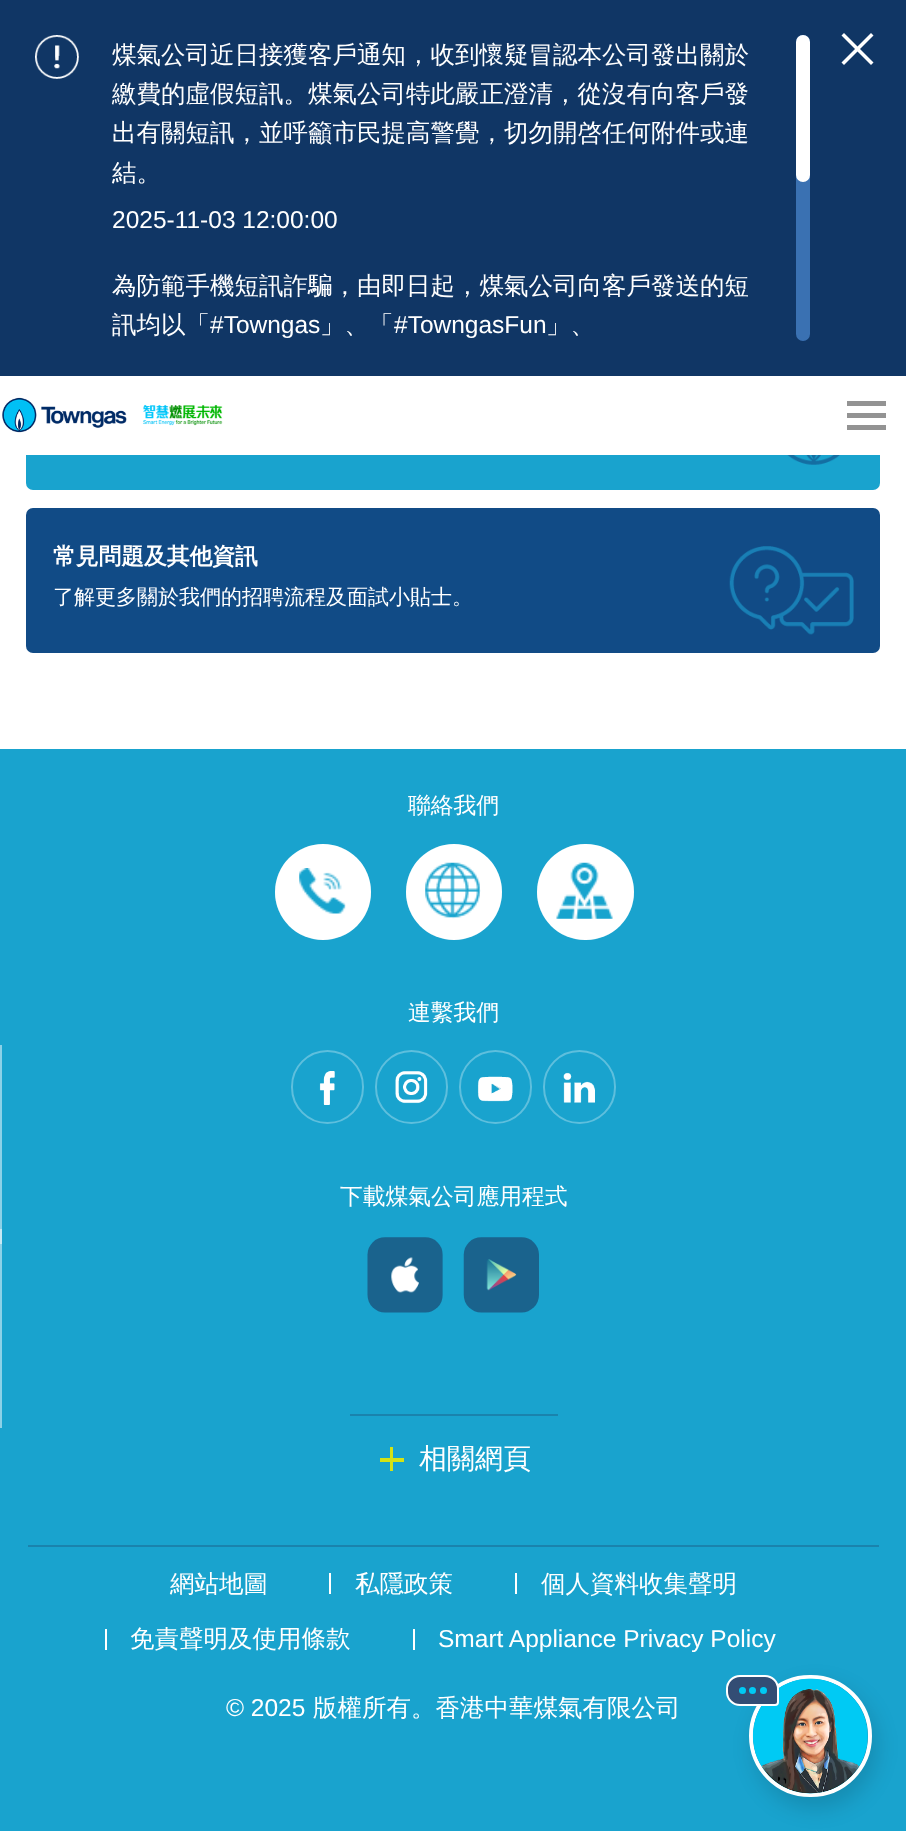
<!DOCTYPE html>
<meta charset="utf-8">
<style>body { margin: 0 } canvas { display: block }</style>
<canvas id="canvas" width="906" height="1831"></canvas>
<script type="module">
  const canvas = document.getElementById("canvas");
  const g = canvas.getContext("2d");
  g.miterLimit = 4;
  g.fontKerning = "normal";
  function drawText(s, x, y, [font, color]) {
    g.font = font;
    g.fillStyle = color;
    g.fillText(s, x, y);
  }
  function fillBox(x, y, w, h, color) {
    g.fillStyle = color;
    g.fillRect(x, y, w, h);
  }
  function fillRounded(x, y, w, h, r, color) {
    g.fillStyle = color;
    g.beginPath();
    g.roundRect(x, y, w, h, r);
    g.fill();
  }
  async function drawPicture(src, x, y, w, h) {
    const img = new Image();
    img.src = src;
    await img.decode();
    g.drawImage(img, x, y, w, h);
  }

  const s1 = ["500 24.5px WenQuanYi Zen Hei", "#FFFFFF"];
  const s2 = ["24.5px Liberation Sans", "#FFFFFF"];
  const s3 = ["bold 22.75px WenQuanYi Zen Hei", "#FFFFFF"];
  const s4 = ["500 21px WenQuanYi Zen Hei", "#FFFFFF"];
  const s5 = ["500 22.75px WenQuanYi Zen Hei", "#FFFFFF"];
  const s6 = ["500 28px WenQuanYi Zen Hei", "#FFFFFF"];

  fillBox(0, 0, 906, 1831, "#FFFFFF");
  fillRounded(26, 345, 854, 145, 7, "#19A3CE");
  fillBox(0, 0, 906, 376, "#103665");
  await drawPicture("pic1.png", 35, 35, 44, 44);
  drawText("煤氣公司近日接獲客戶通知，收到懷疑冒認本公司發出關於", 112, 63, s1);
  drawText("繳費的虛假短訊。煤氣公司特此嚴正澄清，從沒有向客戶發", 112, 102, s1);
  drawText("出有關短訊，並呼籲市民提高警覺，切勿開啓任何附件或連", 112, 141, s1);
  drawText("結。", 112, 181, s1);
  drawText("2025-11-03 12:00:00", 112, 228, s2);
  drawText("為防範手機短訊詐騙，由即日起，煤氣公司向客戶發送的短", 112, 294, s1);
  drawText("訊均以「", 112, 333, s1);
  drawText("#Towngas", 210, 333, s2);
  drawText("」、「", 320, 333, s1);
  drawText("#TowngasFun", 394, 333, s2);
  drawText("」、", 546, 333, s1);
  fillRounded(796, 35, 14, 306, 7, "#3A71B2");
  fillRounded(796, 35, 14, 147, 7, "#FFFFFF");
  g.beginPath();
  g.moveTo(844, 33);
  g.lineTo(873.5, 62.5);
  g.lineTo(871, 65);
  g.lineTo(841.5, 35.5);
  g.closePath();
  g.fill();
  g.beginPath();
  g.moveTo(873.5, 35.5);
  g.lineTo(844, 65);
  g.lineTo(841.5, 62.5);
  g.lineTo(871, 33);
  g.closePath();
  g.fill();
  fillBox(26, 376, 854, 79, "#FFFFFF");
  await drawPicture("pic2.png", 2, 397, 221, 36);
  fillBox(847, 401, 39, 5, "#939393");
  fillBox(847, 413, 39, 5, "#939393");
  fillBox(847, 425, 39, 5, "#939393");
  await drawPicture("pic3.png", 787, 455, 53, 10);
  fillRounded(26, 508, 854, 145, 7, "#114B86");
  drawText("常見問題及其他資訊", 53, 564, s3);
  drawText("了解更多關於我們的招聘流程及面試小貼士。", 53, 604, s4);
  await drawPicture("pic4.png", 729, 546, 125, 89);
  fillBox(0, 749, 906, 1082, "#19A3CE");
  fillBox(0, 1244, 2, 184, "#8CD1E7");
  drawText("聯絡我們", 408, 813, s5);
  g.beginPath();
  g.arc(323, 892, 48, 0, Math.PI * 2);
  g.fill();
  await drawPicture("pic5.png", 299, 868, 47, 46);
  g.beginPath();
  g.arc(323, 892, 47, 0, Math.PI * 2);
  g.strokeStyle = "rgba(255, 255, 255, 0.3)";
  g.lineWidth = 2;
  g.stroke();
  g.beginPath();
  g.arc(454, 892, 48, 0, Math.PI * 2);
  g.fill();
  await drawPicture("pic6.png", 425, 862, 56, 57);
  g.beginPath();
  g.arc(454, 892, 47, 0, Math.PI * 2);
  g.stroke();
  fillRounded(537, 844, 97, 96, 48, "#FFFFFF");
  await drawPicture("pic7.png", 556, 862, 57, 57);
  g.beginPath();
  g.roundRect(538, 845, 95, 94, 47);
  g.stroke();
  drawText("連繫我們", 408, 1020, s5);
  await drawPicture("pic8.png", 319, 1071, 16, 34);
  g.beginPath();
  g.roundRect(292, 1051, 71, 72, 35.5);
  g.strokeStyle = "#5EBFDD";
  g.stroke();
  await drawPicture("pic9.png", 395, 1071, 33, 33);
  g.beginPath();
  g.roundRect(376, 1051, 71, 72, 35.5);
  g.stroke();
  await drawPicture("pic10.png", 477, 1076, 36, 26);
  g.beginPath();
  g.roundRect(460, 1051, 71, 72, 35.5);
  g.stroke();
  await drawPicture("pic11.png", 563, 1072, 32, 31);
  g.beginPath();
  g.roundRect(544, 1051, 71, 72, 35.5);
  g.stroke();
  fillBox(0, 1045, 2, 184, "#8CD1E7");
  fillBox(0, 1229, 2, 15, "#C6E8F3");
  drawText("下載煤氣公司應用程式", 340, 1204, s5);
  await drawPicture("pic12.png", 367, 1237, 76, 76);
  await drawPicture("pic13.png", 463, 1237, 76, 76);
  fillBox(350, 1414, 208, 2, "#1A83AD");
  fillBox(390, 1447, 3, 24, "#D3E315");
  drawText("相關網頁", 419, 1468, s6);
  fillBox(380, 1458, 24, 4, "#D3E315");
  fillBox(28, 1545, 851, 2, "#1A83AD");
  drawText("網站地圖", 170, 1592, s1);
  fillBox(329, 1573, 2, 21, "#FFFFFF");
  drawText("私隱政策", 355, 1592, s1);
  fillBox(515, 1573, 2, 21, "#FFFFFF");
  drawText("個人資料收集聲明", 541, 1592, s1);
  fillBox(105, 1629, 2, 21, "#FFFFFF");
  drawText("免責聲明及使用條款", 130, 1647, s1);
  fillBox(413, 1629, 2, 21, "#FFFFFF");
  drawText("Smart Appliance Privacy Policy", 438, 1647, s2);
  drawText("© 2025", 226, 1716, s2);
  drawText("版權所有。香港中華煤氣有限公司", 313, 1716, s1);
  g.fillStyle = "rgba(0, 0, 0, 0.14)";
  g.filter = "blur(10.5px)";
  g.beginPath();
  g.roundRect(754, 1685, 123, 123, 61.5);
  g.fill();
  g.filter = "none";
  g.beginPath();
  g.roundRect(751, 1677, 119, 118, 59);
  g.strokeStyle = "#FFFFFF";
  g.lineWidth = 4;
  g.stroke();
  await drawPicture("pic14.png", 752, 1678, 116, 116);
  g.fillStyle = "#334D74";
  g.beginPath();
  g.roundRect(727, 1676, 51, 29, [13, 13, 3, 13]);
  g.fill();
  g.lineWidth = 2;
  g.stroke();
  g.fillStyle = "#00CAF4";
  g.beginPath();
  g.arc(742.5, 1690.5, 3.5, 0, Math.PI * 2);
  g.fill();
  g.beginPath();
  g.arc(752.5, 1690.5, 3.5, 0, Math.PI * 2);
  g.fill();
  g.beginPath();
  g.arc(763.5, 1690.5, 3.5, 0, Math.PI * 2);
  g.fill();
</script>
